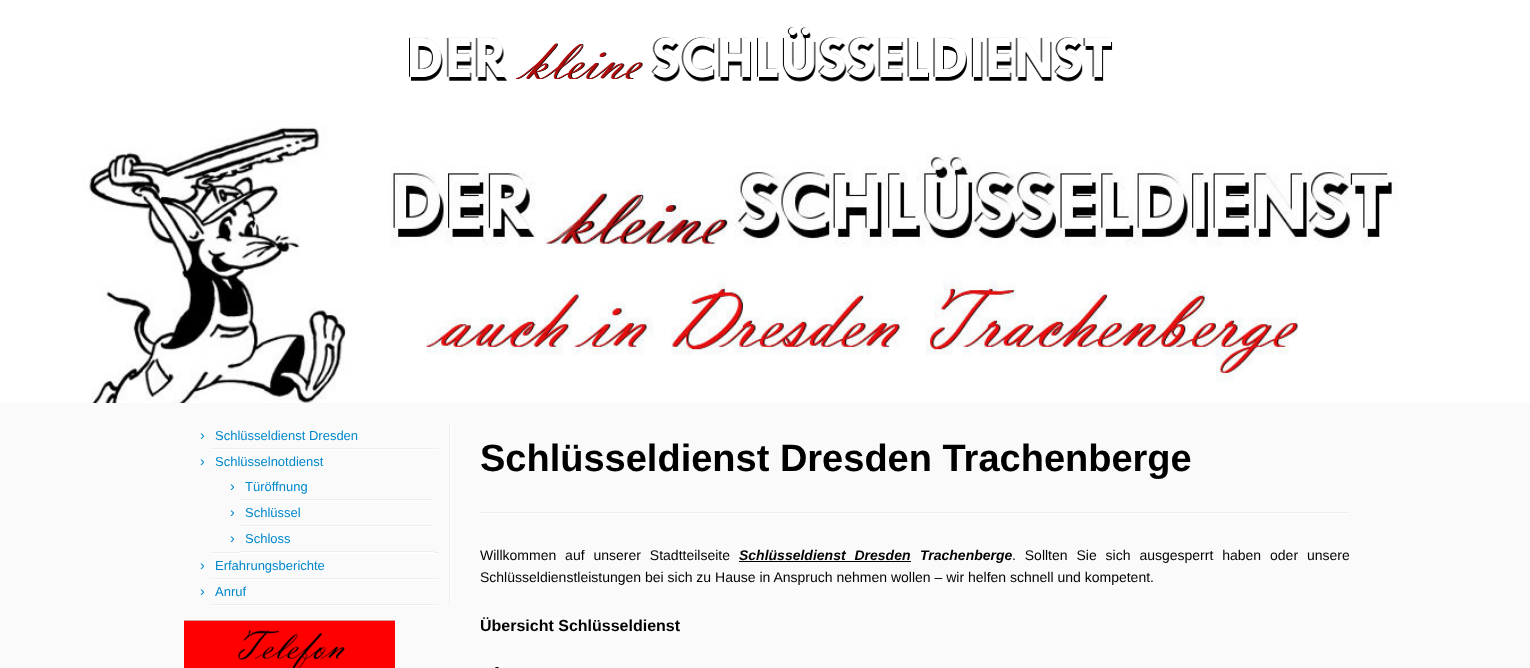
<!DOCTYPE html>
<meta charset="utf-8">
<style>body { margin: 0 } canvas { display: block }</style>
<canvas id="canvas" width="1530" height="668"></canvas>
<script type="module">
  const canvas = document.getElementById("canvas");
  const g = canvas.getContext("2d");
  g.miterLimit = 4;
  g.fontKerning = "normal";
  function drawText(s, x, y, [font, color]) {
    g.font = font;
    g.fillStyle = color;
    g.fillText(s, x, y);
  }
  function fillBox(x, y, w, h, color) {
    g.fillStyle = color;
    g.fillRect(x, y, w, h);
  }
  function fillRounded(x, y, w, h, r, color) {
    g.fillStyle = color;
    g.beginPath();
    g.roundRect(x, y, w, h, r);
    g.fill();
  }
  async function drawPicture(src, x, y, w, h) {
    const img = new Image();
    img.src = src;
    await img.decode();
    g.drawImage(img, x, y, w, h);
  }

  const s1 = ["14px Liberation Sans", "#0088CC"];
  const s2 = ["13px Liberation Sans", "#0088CC"];
  const s3 = ["bold 38px Liberation Sans", "#000000"];
  const s4 = ["14px Liberation Sans", "#000000"];
  const s5 = ["italic bold 14px Liberation Sans", "#000000"];
  const s6 = ["bold 16px Liberation Sans", "#000000"];

  fillBox(0, 0, 1530, 668, "#FAFAFA");
  fillBox(0, 0, 1530, 120, "#FFFFFF");
  await drawPicture("pic1.png", 409, 27, 704, 55);
  await drawPicture("pic2.png", 0, 120, 1530, 283);
  fillBox(449, 423, 1, 182, "#EEEEEE");
  fillBox(210, 448, 229, 1, "#EEEEEE");
  drawText("›", 200, 440, s1);
  drawText("Schlüsseldienst Dresden", 215, 440, s2);
  fillBox(210, 449, 229, 1, "#FFFFFF");
  fillBox(210, 552, 229, 1, "#EEEEEE");
  drawText("›", 200, 466, s1);
  drawText("Schlüsselnotdienst", 215, 466, s2);
  fillBox(240, 499, 194, 1, "#EEEEEE");
  drawText("›", 230, 491, s1);
  drawText("Türöffnung", 245, 491, s2);
  fillBox(240, 500, 194, 1, "#FFFFFF");
  fillBox(240, 525, 194, 1, "#EEEEEE");
  drawText("›", 230, 517, s1);
  drawText("Schlüssel", 245, 517, s2);
  fillBox(240, 526, 194, 1, "#FFFFFF");
  fillBox(240, 551, 194, 1, "#EEEEEE");
  drawText("›", 230, 543, s1);
  drawText("Schloss", 245, 543, s2);
  fillBox(240, 552, 194, 1, "#FFFFFF");
  fillBox(210, 553, 229, 1, "#FFFFFF");
  fillBox(210, 578, 229, 1, "#EEEEEE");
  drawText("›", 200, 570, s1);
  drawText("Erfahrungsberichte", 215, 570, s2);
  fillBox(210, 579, 229, 1, "#FFFFFF");
  fillBox(210, 604, 229, 1, "#EEEEEE");
  drawText("›", 200, 596, s1);
  drawText("Anruf", 215, 596, s2);
  fillBox(210, 605, 229, 1, "#FFFFFF");
  fillBox(450, 423, 1, 182, "#FFFFFF");
  await drawPicture("pic3.png", 184, 620, 211, 48);
  drawText("Schlüsseldienst Dresden Trachenberge", 480, 471, s3);
  fillBox(480, 512, 870, 1, "#EEEEEE");
  fillBox(480, 513, 870, 1, "#FFFFFF");
  g.wordSpacing = "5px";
  drawText("Willkommen auf unserer Stadtteilseite", 480, 560, s4);
  drawText("Schlüsseldienst Dresden", 739, 560, s5);
  fillBox(739, 561, 172, 1, "#000000");
  g.wordSpacing = "0px";
  drawText("Trachenberge", 920, 560, s5);
  g.wordSpacing = "5px";
  drawText(". Sollten Sie sich ausgesperrt haben oder unsere", 1012, 560, s4);
  g.wordSpacing = "0px";
  drawText("Schlüsseldienstleistungen bei sich zu Hause in Anspruch nehmen wollen – wir helfen schnell und kompetent.", 480, 582, s4);
  drawText("Übersicht Schlüsseldienst", 480, 631, s6);
  fillRounded(495, 667, 4, 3, 2, "#000000");
</script>
